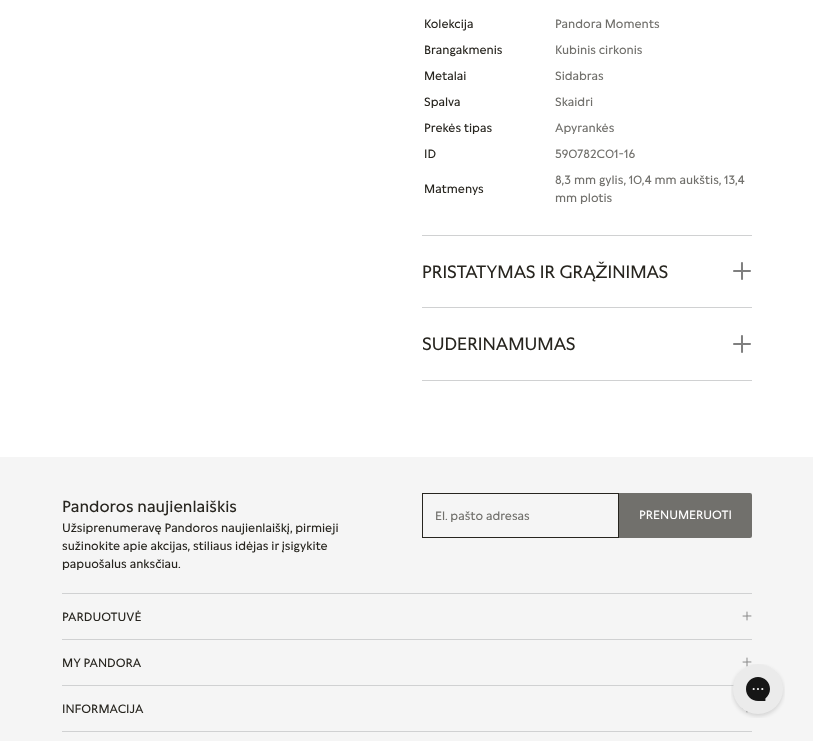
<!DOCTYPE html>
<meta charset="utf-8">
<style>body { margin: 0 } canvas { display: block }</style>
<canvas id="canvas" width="813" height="741"></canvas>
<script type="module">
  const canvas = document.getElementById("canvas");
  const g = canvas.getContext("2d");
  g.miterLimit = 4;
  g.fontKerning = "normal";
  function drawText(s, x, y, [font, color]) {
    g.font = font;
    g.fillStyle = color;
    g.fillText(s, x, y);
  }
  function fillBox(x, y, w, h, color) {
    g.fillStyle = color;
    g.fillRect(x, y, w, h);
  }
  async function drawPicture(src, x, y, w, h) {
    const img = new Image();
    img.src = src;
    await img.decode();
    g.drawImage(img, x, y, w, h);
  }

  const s1 = ["12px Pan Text", "#27251F"];
  const s2 = ["12px Pan Text", "#71706C"];
  const s3 = ["18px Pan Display", "#27251F"];
  const s4 = ["16px Pan Text", "#27251F"];
  const s5 = ["12px Pan Text", "#FFFFFF"];

  fillBox(0, 0, 813, 741, "#FFFFFF");
  fillBox(422, 235, 330, 1, "#D0D1D2");
  drawText("Kolekcija", 424, 28, s1);
  drawText("Pandora Moments", 555, 28, s2);
  drawText("Brangakmenis", 424, 54, s1);
  drawText("Kubinis cirkonis", 555, 54, s2);
  drawText("Metalai", 424, 80, s1);
  drawText("Sidabras", 555, 80, s2);
  drawText("Spalva", 424, 106, s1);
  drawText("Skaidri", 555, 106, s2);
  drawText("Prekės tipas", 424, 132, s1);
  drawText("Apyrankės", 555, 132, s2);
  drawText("ID", 424, 158, s1);
  drawText("590782C01-16", 555, 158, s2);
  drawText("Matmenys", 424, 193, s1);
  drawText("8,3 mm gylis, 10,4 mm aukštis, 13,4", 555, 184, s2);
  drawText("mm plotis", 555, 202, s2);
  fillBox(422, 307, 330, 1, "#D0D1D2");
  drawText("PRISTATYMAS IR GRĄŽINIMAS", 422, 278, s3);
  await drawPicture("pic1.png", 733, 262, 18, 18);
  fillBox(422, 380, 330, 1, "#D0D1D2");
  drawText("SUDERINAMUMAS", 422, 350, s3);
  await drawPicture("pic1.png", 733, 335, 18, 18);
  fillBox(0, 457, 813, 284, "#F5F5F5");
  fillBox(62, 593, 690, 1, "#D0D1D2");
  drawText("Pandoros naujienlaiškis", 62, 512, s4);
  drawText("Užsiprenumeravę Pandoros naujienlaiškį, pirmieji", 62, 532, s1);
  drawText("sužinokite apie akcijas, stiliaus idėjas ir įsigykite", 62, 550, s1);
  drawText("papuošalus anksčiau.", 62, 568, s1);
  g.strokeStyle = "#27251F";
  g.strokeRect(422.5, 493.5, 196, 44);
  drawText("El. pašto adresas", 435, 520, s2);
  g.beginPath();
  g.roundRect(619, 493, 133, 45, [0, 2, 2, 0]);
  g.fill();
  drawText("PRENUMERUOTI", 639, 519, s5);
  fillBox(62, 639, 690, 1, "#D0D1D2");
  drawText("PARDUOTUVĖ", 62, 621, s1);
  await drawPicture("pic2.png", 742, 611, 10, 10);
  fillBox(62, 685, 672, 1, "#D0D1D2");
  drawText("MY PANDORA", 62, 667, s1);
  await drawPicture("pic2.png", 742, 657, 10, 10);
  fillBox(62, 731, 690, 1, "#D0D1D2");
  drawText("INFORMACIJA", 62, 713, s1);
  await drawPicture("pic3.png", 742, 708, 6, 5);
  await drawPicture("pic4.png", 731, 664, 54, 54);
</script>
